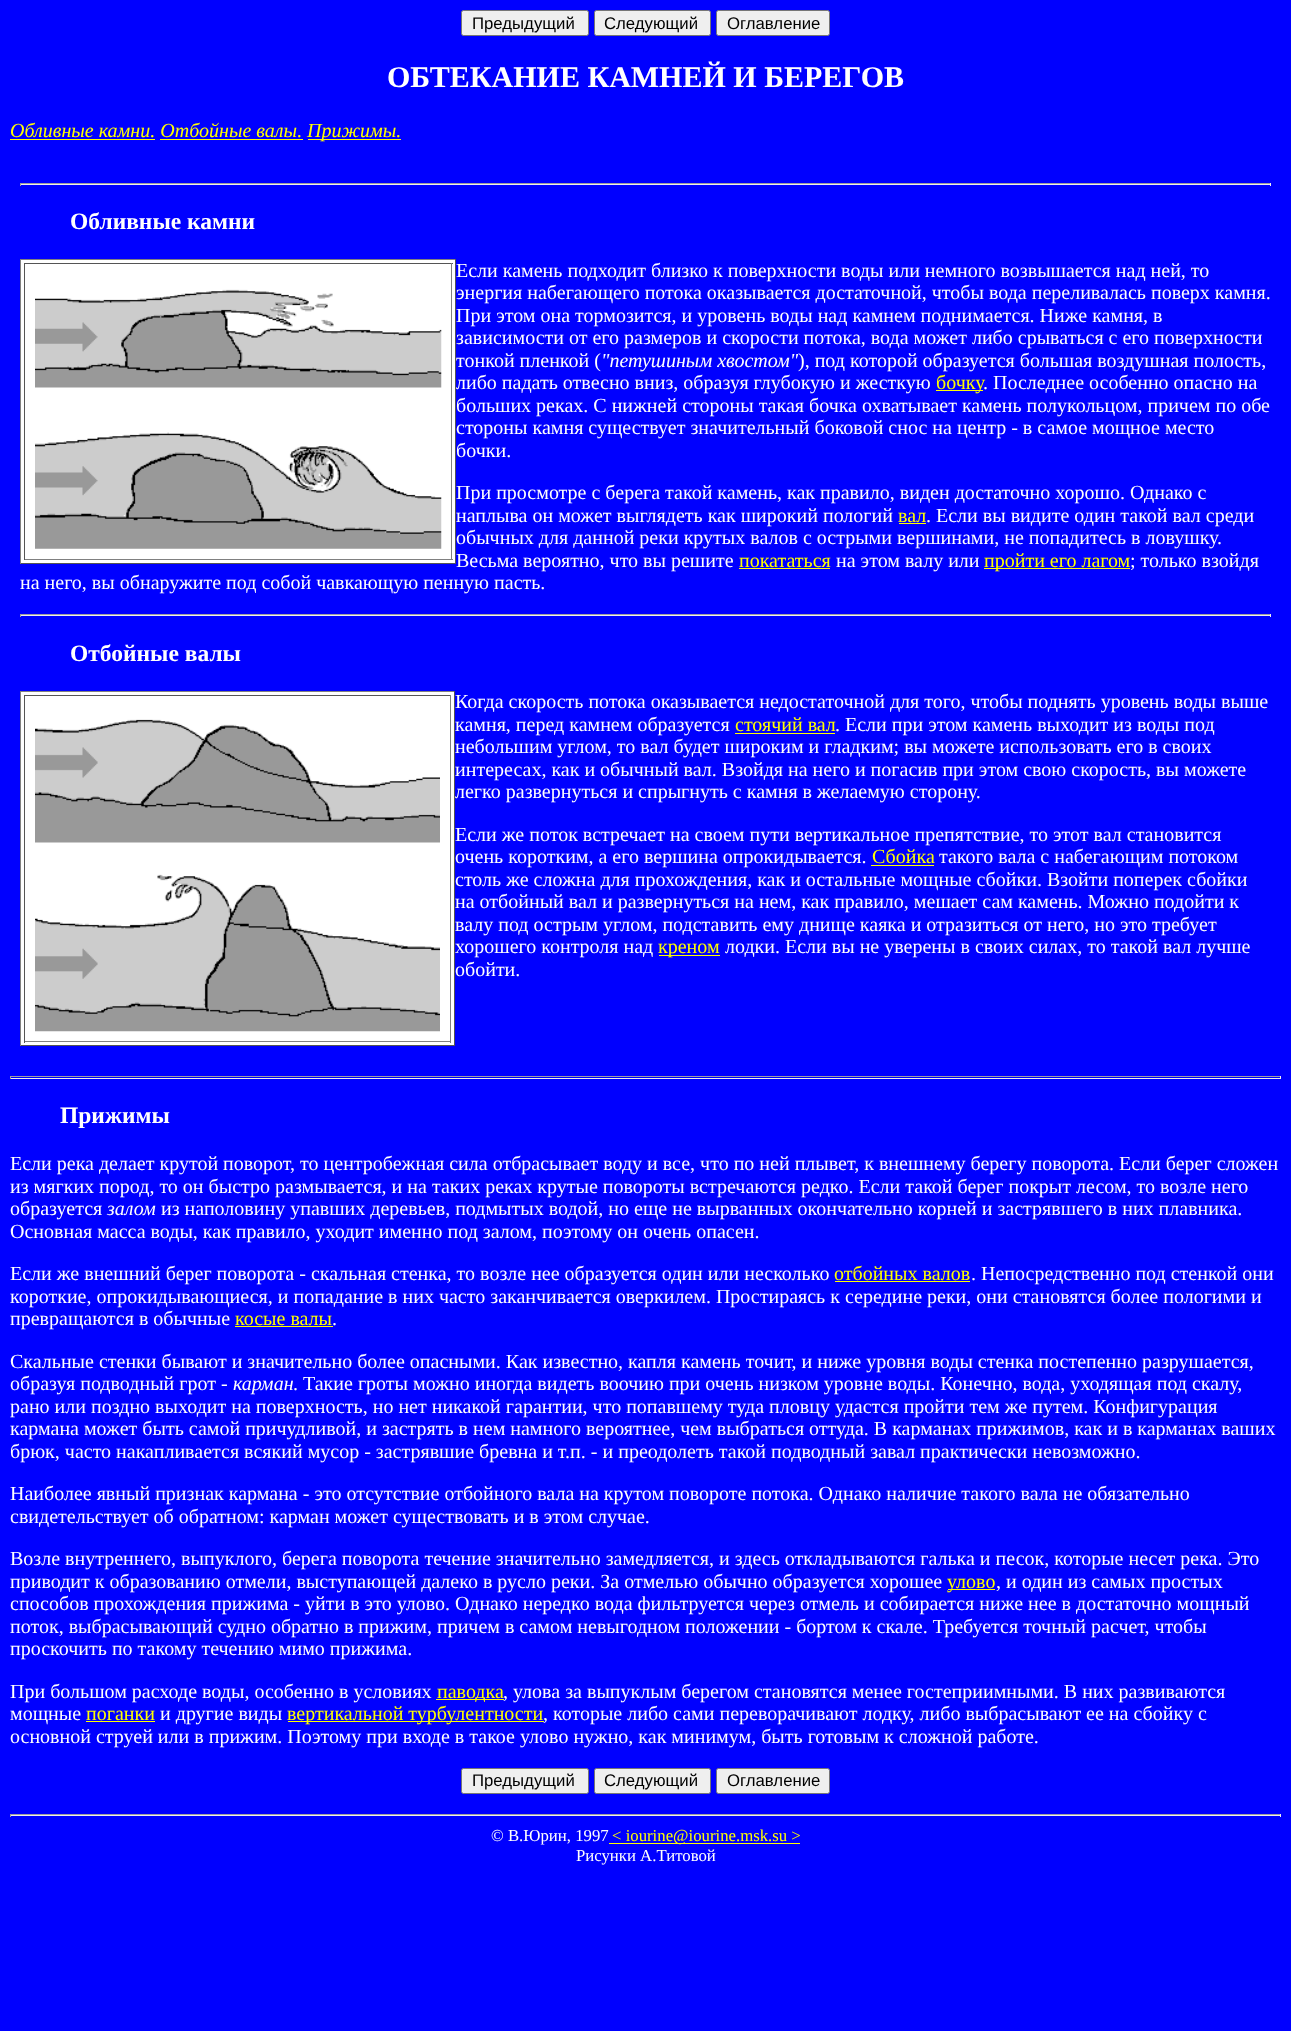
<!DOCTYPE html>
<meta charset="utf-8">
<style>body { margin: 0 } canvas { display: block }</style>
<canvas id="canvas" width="1291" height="2031"></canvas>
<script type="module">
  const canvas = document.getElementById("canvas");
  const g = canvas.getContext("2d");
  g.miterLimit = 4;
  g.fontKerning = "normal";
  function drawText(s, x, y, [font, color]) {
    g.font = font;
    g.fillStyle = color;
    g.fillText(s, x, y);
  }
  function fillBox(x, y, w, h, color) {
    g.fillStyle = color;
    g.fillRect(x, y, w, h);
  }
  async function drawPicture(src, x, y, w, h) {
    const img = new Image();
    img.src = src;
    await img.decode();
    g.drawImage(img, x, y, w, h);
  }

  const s1 = ["16.75px Liberation Sans", "#000000"];
  const s2 = ["bold 30px Liberation Serif", "#FFFFFF"];
  const s3 = ["italic 20px Liberation Serif", "#FFFF00"];
  const s4 = ["bold 23.5px Liberation Serif", "#FFFFFF"];
  const s5 = ["20px Liberation Serif", "#FFFFFF"];
  const s6 = ["italic 20px Liberation Serif", "#FFFFFF"];
  const s7 = ["20px Liberation Serif", "#FFFF00"];
  const s8 = ["16.75px Liberation Serif", "#FFFFFF"];
  const s9 = ["16.75px Liberation Serif", "#FFFF00"];

  fillBox(0, 0, 1291, 2031, "#0000FF");
  g.fillStyle = "#EFEFEF";
  g.beginPath();
  g.roundRect(461.5, 10.5, 127, 25, 2);
  g.fill();
  g.strokeStyle = "#767676";
  g.stroke();
  drawText("Предыдущий", 472, 29, s1);
  g.fillStyle = "#EFEFEF";
  g.beginPath();
  g.roundRect(594.5, 10.5, 116, 25, 2);
  g.fill();
  g.stroke();
  drawText("Следующий", 604, 29, s1);
  g.fillStyle = "#EFEFEF";
  g.beginPath();
  g.roundRect(716.5, 10.5, 113, 25, 2);
  g.fill();
  g.stroke();
  drawText("Оглавление", 727, 29, s1);
  drawText("ОБТЕКАНИЕ КАМНЕЙ И БЕРЕГОВ", 387, 87, s2);
  drawText("Обливные камни. Отбойные валы.", 10, 137, s3);
  fillBox(10, 139, 145, 1, "#FFFF00");
  fillBox(308, 139, 93, 1, "#FFFF00");
  drawText("Прижимы.", 307, 137, s3);
  fillBox(160, 139, 143, 1, "#FFFF00");
  fillBox(20, 183, 1251, 1, "#9F9F9F");
  fillBox(1270, 183, 1, 3, "#EEEEEE");
  fillBox(20, 184, 1251, 1, "#EEEEEE");
  fillBox(20, 183, 1, 3, "#9F9F9F");
  drawText("Обливные камни", 70, 229, s4);
  fillBox(21, 260, 434, 303, "#FFFFFF");
  fillBox(20, 259, 436, 1, "#808080");
  fillBox(455, 259, 1, 305, "#555555");
  fillBox(20, 563, 436, 1, "#555555");
  fillBox(20, 259, 1, 305, "#808080");
  fillBox(24, 263, 429, 1, "#555555");
  fillBox(451, 263, 1, 297, "#808080");
  fillBox(24, 559, 429, 1, "#808080");
  fillBox(24, 263, 1, 297, "#555555");
  await drawPicture("pic1.png", 35, 289, 407, 260);
  drawText("Если камень подходит близко к поверхности воды или немного возвышается над ней, то", 456, 277, s5);
  drawText("энергия набегающего потока оказывается достаточной, чтобы вода переливалась поверх камня.", 456, 299, s5);
  drawText("При этом она тормозится, и уровень воды над камнем поднимается. Ниже камня, в", 456, 322, s5);
  drawText("зависимости от его размеров и скорости потока, вода может либо срываться с его поверхности", 456, 344, s5);
  drawText("тонкой пленкой (", 456, 367, s5);
  drawText("\"петушиным хвостом\"", 601, 367, s6);
  drawText("), под которой образуется большая воздушная полость,", 798, 367, s5);
  drawText("либо падать отвесно вниз, образуя глубокую и жесткую", 456, 389, s5);
  fillBox(936, 390, 47, 1, "#FFFF00");
  drawText("бочку", 936, 389, s7);
  drawText(". Последнее особенно опасно на", 983, 389, s5);
  drawText("больших реках. С нижней стороны такая бочка охватывает камень полукольцом, причем по обе", 456, 412, s5);
  drawText("стороны камня существует значительный боковой снос на центр - в самое мощное место", 456, 434, s5);
  drawText("бочки.", 456, 457, s5);
  drawText("При просмотре с берега такой камень, как правило, виден достаточно хорошо. Однако с", 456, 499, s5);
  drawText("наплыва он может выглядеть как широкий пологий", 456, 522, s5);
  drawText("вал", 898, 522, s7);
  fillBox(899, 523, 27, 1, "#FFFF00");
  drawText(". Если вы видите один такой вал среди", 926, 522, s5);
  drawText("обычных для данной реки крутых валов с острыми вершинами, не попадитесь в ловушку.", 456, 544, s5);
  drawText("Весьма вероятно, что вы решите", 456, 567, s5);
  drawText("покататься", 739, 567, s7);
  fillBox(739, 568, 91, 1, "#FFFF00");
  drawText("на этом валу или", 836, 567, s5);
  fillBox(984, 568, 146, 1, "#FFFF00");
  drawText("пройти его лагом", 984, 567, s7);
  drawText("; только взойдя", 1130, 567, s5);
  drawText("на него, вы обнаружите под собой чавкающую пенную пасть.", 20, 589, s5);
  fillBox(20, 614, 1251, 1, "#9F9F9F");
  fillBox(1270, 614, 1, 3, "#EEEEEE");
  fillBox(20, 615, 1251, 1, "#EEEEEE");
  fillBox(20, 614, 1, 3, "#9F9F9F");
  drawText("Отбойные валы", 70, 661, s4);
  fillBox(21, 692, 433, 353, "#FFFFFF");
  fillBox(20, 691, 435, 1, "#808080");
  fillBox(454, 691, 1, 355, "#555555");
  fillBox(20, 1045, 435, 1, "#555555");
  fillBox(20, 691, 1, 355, "#808080");
  fillBox(24, 695, 427, 1, "#555555");
  fillBox(450, 695, 1, 348, "#808080");
  fillBox(24, 1041, 427, 1, "#808080");
  fillBox(24, 695, 1, 348, "#555555");
  await drawPicture("pic2.png", 35, 719, 405, 313);
  drawText("Когда скорость потока оказывается недостаточной для того, чтобы поднять уровень воды выше", 455, 708, s5);
  drawText("камня, перед камнем образуется", 455, 731, s5);
  drawText("стоячий вал", 735, 731, s7);
  fillBox(735, 733, 100, 1, "#FFFF00");
  drawText(". Если при этом камень выходит из воды под", 835, 731, s5);
  drawText("небольшим углом, то вал будет широким и гладким; вы можете использовать его в своих", 455, 753, s5);
  drawText("интересах, как и обычный вал. Взойдя на него и погасив при этом свою скорость, вы можете", 455, 776, s5);
  drawText("легко развернуться и спрыгнуть с камня в желаемую сторону.", 455, 798, s5);
  drawText("Если же поток встречает на своем пути вертикальное препятствие, то этот вал становится", 455, 841, s5);
  drawText("очень коротким, а его вершина опрокидывается.", 455, 863, s5);
  drawText("Сбойка", 872, 863, s7);
  fillBox(871, 865, 63, 1, "#FFFF00");
  drawText("такого вала с набегающим потоком", 939, 863, s5);
  drawText("столь же сложна для прохождения, как и остальные мощные сбойки. Взойти поперек сбойки", 455, 886, s5);
  drawText("на отбойный вал и развернуться на нем, как правило, мешает сам камень. Можно подойти к", 455, 908, s5);
  drawText("валу под острым углом, подставить ему днище каяка и отразиться от него, но это требует", 455, 931, s5);
  drawText("хорошего контроля над", 455, 953, s5);
  fillBox(659, 955, 61, 1, "#FFFF00");
  drawText("креном", 658, 953, s7);
  drawText("лодки. Если вы не уверены в своих силах, то такой вал лучше", 725, 953, s5);
  drawText("обойти.", 455, 976, s5);
  fillBox(10, 1076, 1271, 1, "#9F9F9F");
  fillBox(1280, 1076, 1, 3, "#EEEEEE");
  fillBox(10, 1078, 1271, 1, "#EEEEEE");
  fillBox(10, 1076, 1, 3, "#9F9F9F");
  drawText("Прижимы", 60, 1123, s4);
  drawText("Если река делает крутой поворот, то центробежная сила отбрасывает воду и все, что по ней плывет, к внешнему берегу поворота. Если берег сложен", 10, 1170, s5);
  drawText("из мягких пород, то он быстро размывается, и на таких реках крутые повороты встречаются редко. Если такой берег покрыт лесом, то возле него", 10, 1193, s5);
  drawText("образуется", 10, 1215, s5);
  drawText("залом", 107, 1215, s6);
  drawText("из наполовину упавших деревьев, подмытых водой, но еще не вырванных окончательно корней и застрявшего в них плавника.", 161, 1215, s5);
  drawText("Основная масса воды, как правило, уходит именно под залом, поэтому он очень опасен.", 10, 1238, s5);
  drawText("Если же внешний берег поворота - скальная стенка, то возле нее образуется один или несколько", 10, 1280, s5);
  drawText("отбойных валов", 834, 1280, s7);
  fillBox(835, 1281, 135, 1, "#FFFF00");
  drawText(". Непосредственно под стенкой они", 971, 1280, s5);
  drawText("короткие, опрокидывающиеся, и попадание в них часто заканчивается оверкилем. Простираясь к середине реки, они становятся более пологими и", 10, 1303, s5);
  drawText("превращаются в обычные", 10, 1325, s5);
  drawText("косые валы", 235, 1325, s7);
  fillBox(235, 1326, 98, 1, "#FFFF00");
  drawText(".", 332, 1325, s5);
  drawText("Скальные стенки бывают и значительно более опасными. Как известно, капля камень точит, и ниже уровня воды стенка постепенно разрушается,", 10, 1368, s5);
  drawText("образуя подводный грот -", 10, 1390, s5);
  drawText("карман", 233, 1390, s6);
  drawText(". Такие гроты можно иногда видеть воочию при очень низком уровне воды. Конечно, вода, уходящая под скалу,", 293, 1390, s5);
  drawText("рано или поздно выходит на поверхность, но нет никакой гарантии, что попавшему туда пловцу удастся пройти тем же путем. Конфигурация", 10, 1413, s5);
  drawText("кармана может быть самой причудливой, и застрять в нем намного вероятнее, чем выбраться оттуда. В карманах прижимов, как и в карманах ваших", 10, 1435, s5);
  drawText("брюк, часто накапливается всякий мусор - застрявшие бревна и т.п. - и преодолеть такой подводный завал практически невозможно.", 10, 1458, s5);
  drawText("Наиболее явный признак кармана - это отсутствие отбойного вала на крутом повороте потока. Однако наличие такого вала не обязательно", 10, 1500, s5);
  drawText("свидетельствует об обратном: карман может существовать и в этом случае.", 10, 1523, s5);
  drawText("Возле внутреннего, выпуклого, берега поворота течение значительно замедляется, и здесь откладываются галька и песок, которые несет река. Это", 10, 1565, s5);
  drawText("приводит к образованию отмели, выступающей далеко в русло реки. За отмелью обычно образуется хорошее", 10, 1588, s5);
  fillBox(948, 1589, 47, 1, "#FFFF00");
  drawText("улово", 947, 1588, s7);
  drawText(", и один из самых простых", 996, 1588, s5);
  drawText("способов прохождения прижима - уйти в это улово. Однако нередко вода фильтруется через отмель и собирается ниже нее в достаточно мощный", 10, 1610, s5);
  drawText("поток, выбрасывающий судно обратно в прижим, причем в самом невыгодном положении - бортом к скале. Требуется точный расчет, чтобы", 10, 1633, s5);
  drawText("проскочить по такому течению мимо прижима.", 10, 1655, s5);
  drawText("При большом расходе воды, особенно в условиях", 10, 1698, s5);
  fillBox(436, 1699, 68, 1, "#FFFF00");
  drawText("паводка", 437, 1698, s7);
  drawText(", улова за выпуклым берегом становятся менее гостеприимными. В них развиваются", 503, 1698, s5);
  drawText("мощные", 10, 1720, s5);
  drawText("поганки", 86, 1720, s7);
  fillBox(86, 1721, 69, 1, "#FFFF00");
  drawText("и другие виды", 160, 1720, s5);
  fillBox(288, 1721, 256, 1, "#FFFF00");
  drawText("вертикальной турбулентности", 287, 1720, s7);
  drawText(", которые либо сами переворачивают лодку, либо выбрасывают ее на сбойку с", 543, 1720, s5);
  drawText("основной струей или в прижим. Поэтому при входе в такое улово нужно, как минимум, быть готовым к сложной работе.", 10, 1743, s5);
  g.fillStyle = "#EFEFEF";
  g.beginPath();
  g.roundRect(461.5, 1768.5, 127, 25, 2);
  g.fill();
  g.stroke();
  drawText("Предыдущий", 472, 1786, s1);
  g.fillStyle = "#EFEFEF";
  g.beginPath();
  g.roundRect(594.5, 1768.5, 116, 25, 2);
  g.fill();
  g.stroke();
  drawText("Следующий", 604, 1786, s1);
  g.fillStyle = "#EFEFEF";
  g.beginPath();
  g.roundRect(716.5, 1768.5, 113, 25, 2);
  g.fill();
  g.stroke();
  drawText("Оглавление", 727, 1786, s1);
  fillBox(10, 1814, 1271, 1, "#9F9F9F");
  fillBox(1280, 1814, 1, 3, "#EEEEEE");
  fillBox(10, 1815, 1271, 1, "#EEEEEE");
  fillBox(10, 1814, 1, 3, "#9F9F9F");
  drawText("© В.Юрин, 1997", 491, 1841, s8);
  fillBox(609, 1843, 191, 1, "#FFFF00");
  drawText("< iourine@iourine.msk.su >", 612, 1841, s9);
  drawText("Рисунки А.Титовой", 576, 1861, s8);
</script>
